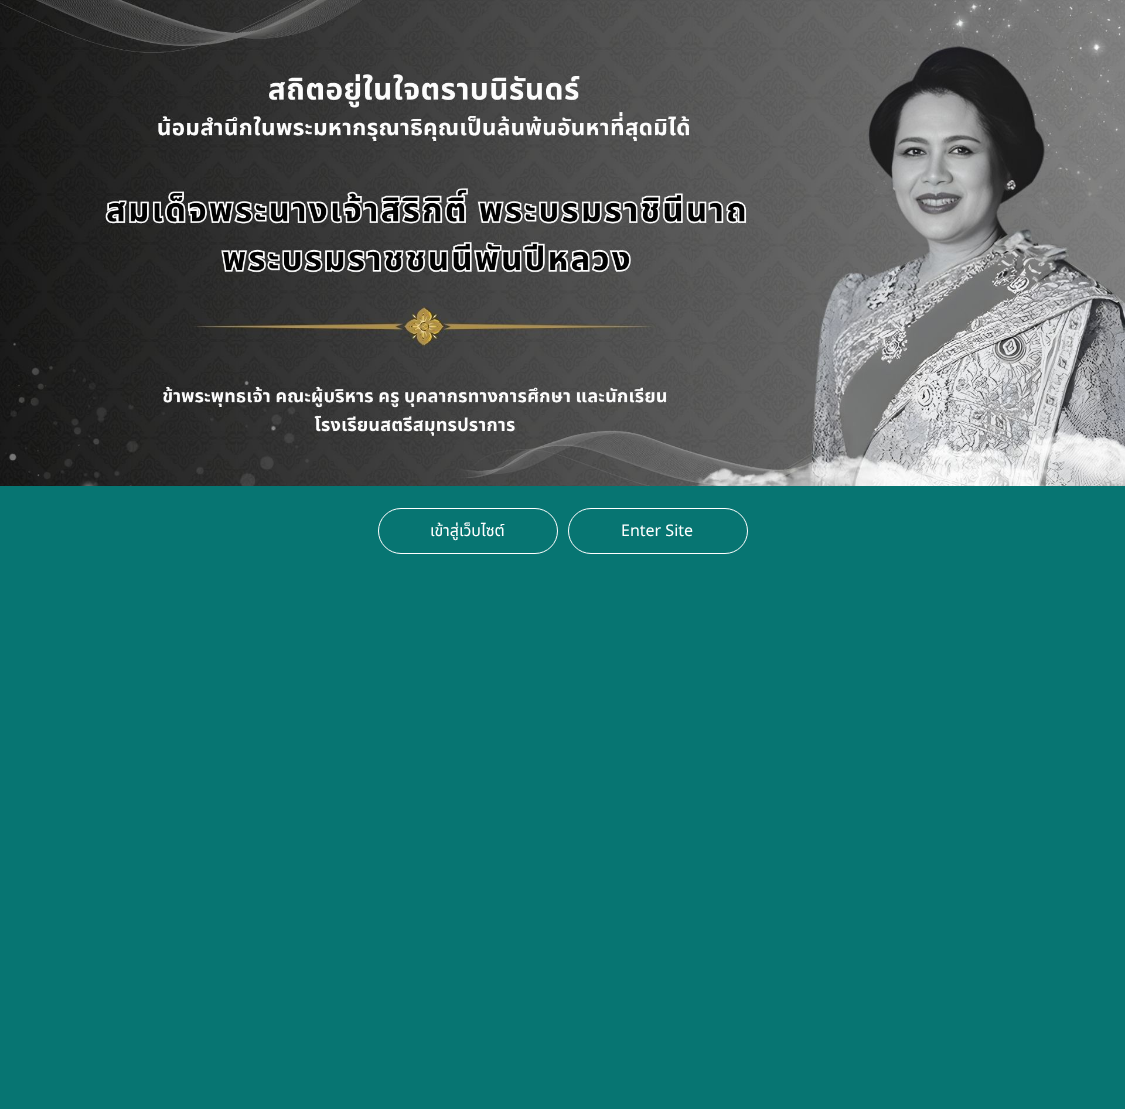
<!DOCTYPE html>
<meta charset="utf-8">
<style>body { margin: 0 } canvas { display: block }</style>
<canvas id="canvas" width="1125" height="1109"></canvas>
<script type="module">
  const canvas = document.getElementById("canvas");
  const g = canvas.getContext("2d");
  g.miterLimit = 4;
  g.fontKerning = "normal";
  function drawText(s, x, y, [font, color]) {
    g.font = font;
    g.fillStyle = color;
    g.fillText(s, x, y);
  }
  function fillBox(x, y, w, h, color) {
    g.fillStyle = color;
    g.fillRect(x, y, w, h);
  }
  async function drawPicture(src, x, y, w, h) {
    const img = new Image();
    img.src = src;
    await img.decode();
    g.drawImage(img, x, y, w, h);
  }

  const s1 = ["16px Noto Sans Thai", "#FFFFFF"];

  fillBox(0, 0, 1125, 1109, "#077572");
  await drawPicture("pic1.png", 0, 0, 1125, 486);
  g.beginPath();
  g.roundRect(378.5, 508.5, 179, 45, 22.5);
  g.strokeStyle = "#FFFFFF";
  g.stroke();
  drawText("เข้าสู่เว็บไซต์", 430, 536, s1);
  g.beginPath();
  g.roundRect(568.5, 508.5, 179, 45, 22.5);
  g.stroke();
  drawText("Enter Site", 621, 536, s1);
</script>
